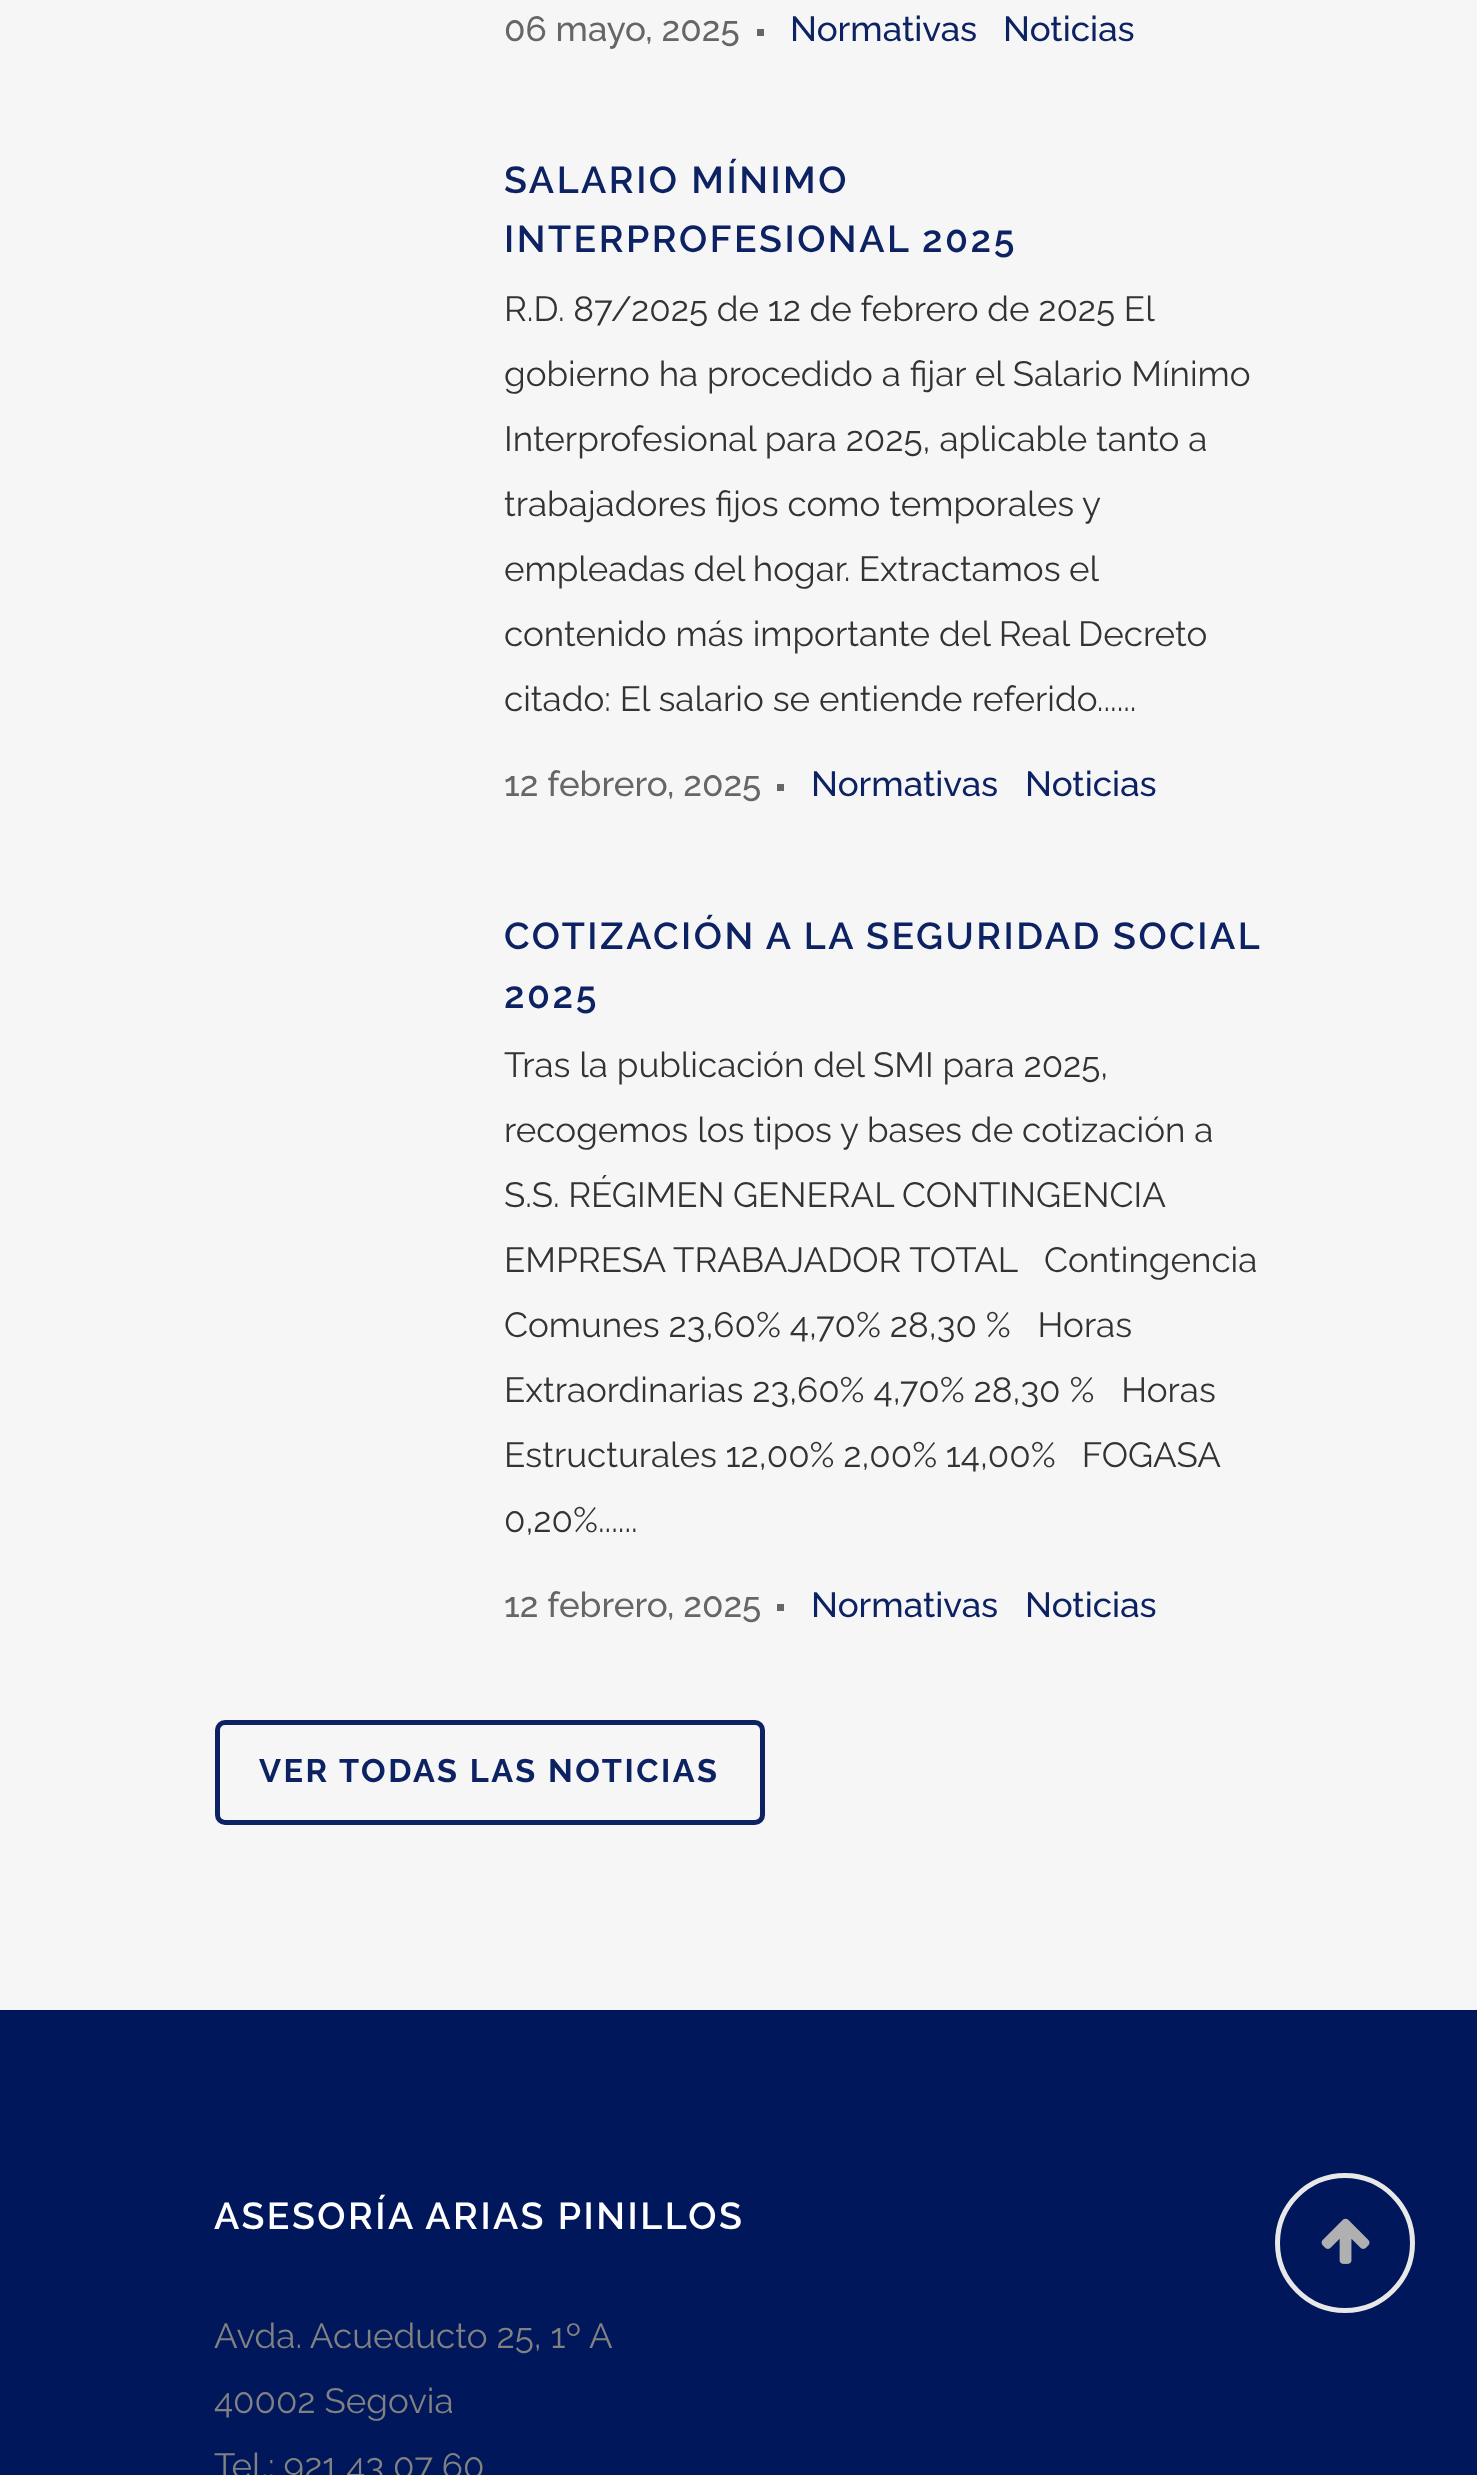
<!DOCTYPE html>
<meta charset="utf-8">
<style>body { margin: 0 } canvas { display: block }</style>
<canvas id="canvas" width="1477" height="2475"></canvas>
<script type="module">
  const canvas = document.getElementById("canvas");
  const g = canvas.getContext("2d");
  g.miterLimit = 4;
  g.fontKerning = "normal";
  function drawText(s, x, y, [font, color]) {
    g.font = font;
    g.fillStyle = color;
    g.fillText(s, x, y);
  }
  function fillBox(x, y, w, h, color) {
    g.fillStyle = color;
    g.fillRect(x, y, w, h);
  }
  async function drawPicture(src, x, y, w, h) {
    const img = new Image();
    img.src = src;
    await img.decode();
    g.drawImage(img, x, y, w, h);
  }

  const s1 = ["500 35px Raleway", "#666666"];
  const s2 = ["500 35px Raleway", "#0D2262"];
  const s3 = ["600 37.5px Raleway", "#0D2262"];
  const s4 = ["35px Raleway", "#333333"];
  const s5 = ["bold 32.5px Raleway", "#0D2262"];
  const s6 = ["600 37.5px Raleway", "#FFFFFF"];
  const s7 = ["35px Raleway", "#818181"];

  fillBox(0, 0, 1477, 2475, "#F6F6F6");
  drawText("06 mayo, 2025", 504, 41, s1);
  fillBox(757, 29, 7, 7, "#666666");
  drawText("Normativas", 790, 41, s2);
  drawText("Noticias", 1003, 41, s2);
  g.letterSpacing = "2.5px";
  drawText("SALARIO MÍNIMO", 504, 193, s3);
  drawText("INTERPROFESIONAL 2025", 504, 252, s3);
  g.letterSpacing = "0px";
  g.wordSpacing = "-0.25px";
  drawText("R.D. 87/2025 de 12 de febrero de 2025 El", 504, 321, s4);
  g.wordSpacing = "0px";
  drawText("gobierno ha procedido a fijar el Salario Mínimo", 504, 386, s4);
  drawText("Interprofesional para 2025, aplicable tanto a", 504, 451, s4);
  drawText("trabajadores fijos como temporales y", 504, 516, s4);
  g.wordSpacing = "-0.5px";
  drawText("empleadas del hogar. Extractamos el", 504, 581, s4);
  g.wordSpacing = "0px";
  drawText("contenido más importante del Real Decreto", 504, 646, s4);
  drawText("citado: El salario se entiende referido......", 504, 711, s4);
  drawText("12 febrero, 2025", 504, 796, s1);
  fillBox(777, 784, 7, 7, "#666666");
  drawText("Normativas", 811, 796, s2);
  drawText("Noticias", 1025, 796, s2);
  g.letterSpacing = "2.5px";
  g.wordSpacing = "-0.5px";
  drawText("COTIZACIÓN A LA SEGURIDAD SOCIAL", 504, 949, s3);
  g.wordSpacing = "0px";
  drawText("2025", 504, 1008, s3);
  g.letterSpacing = "0px";
  drawText("Tras la publicación del SMI para 2025,", 504, 1077, s4);
  drawText("recogemos los tipos y bases de cotización a", 504, 1142, s4);
  g.wordSpacing = "-0.5px";
  drawText("S.S. RÉGIMEN GENERAL CONTINGENCIA", 504, 1207, s4);
  g.wordSpacing = "0px";
  drawText("EMPRESA TRABAJADOR TOTAL   Contingencia", 504, 1272, s4);
  drawText("Comunes 23,60% 4,70% 28,30 %   Horas", 504, 1337, s4);
  drawText("Extraordinarias 23,60% 4,70% 28,30 %   Horas", 504, 1402, s4);
  g.wordSpacing = "-0.25px";
  drawText("Estructurales 12,00% 2,00% 14,00%   FOGASA", 504, 1467, s4);
  g.wordSpacing = "0px";
  drawText("0,20%......", 504, 1532, s4);
  drawText("12 febrero, 2025", 504, 1617, s1);
  fillBox(777, 1604, 7, 7, "#666666");
  drawText("Normativas", 811, 1617, s2);
  drawText("Noticias", 1025, 1617, s2);
  g.beginPath();
  g.roundRect(217.5, 1722.5, 545, 100, 7.5);
  g.strokeStyle = "#0D2262";
  g.lineWidth = 5;
  g.stroke();
  g.letterSpacing = "2.5px";
  drawText("VER TODAS LAS NOTICIAS", 259, 1782, s5);
  fillBox(0, 2010, 1477, 465, "#01175C");
  drawText("ASESORÍA ARIAS PINILLOS", 214, 2229, s6);
  g.letterSpacing = "0px";
  drawText("Avda. Acueducto 25, 1º A", 214, 2348, s7);
  drawText("40002 Segovia", 214, 2413, s7);
  drawText("Tel.: 921 43 07 60", 214, 2478, s7);
  g.beginPath();
  g.arc(1345, 2243, 67.5, 0, Math.PI * 2);
  g.strokeStyle = "#E8E8E8";
  g.stroke();
  await drawPicture("pic1.png", 1321, 2218, 49, 46);
</script>
